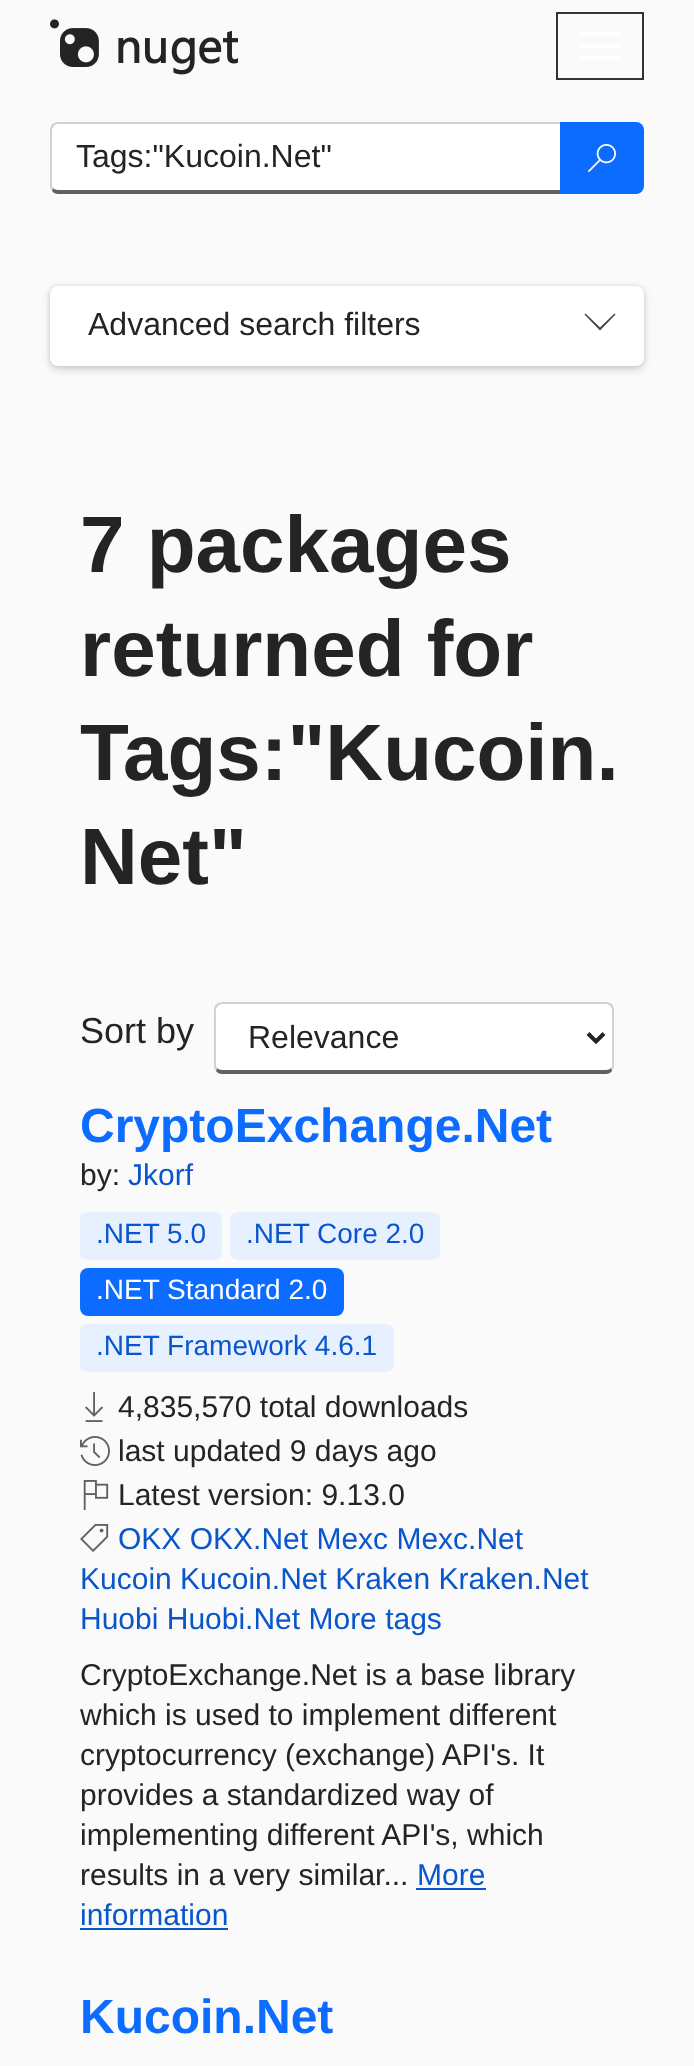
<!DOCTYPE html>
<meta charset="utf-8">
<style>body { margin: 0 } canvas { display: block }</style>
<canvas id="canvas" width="694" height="2066"></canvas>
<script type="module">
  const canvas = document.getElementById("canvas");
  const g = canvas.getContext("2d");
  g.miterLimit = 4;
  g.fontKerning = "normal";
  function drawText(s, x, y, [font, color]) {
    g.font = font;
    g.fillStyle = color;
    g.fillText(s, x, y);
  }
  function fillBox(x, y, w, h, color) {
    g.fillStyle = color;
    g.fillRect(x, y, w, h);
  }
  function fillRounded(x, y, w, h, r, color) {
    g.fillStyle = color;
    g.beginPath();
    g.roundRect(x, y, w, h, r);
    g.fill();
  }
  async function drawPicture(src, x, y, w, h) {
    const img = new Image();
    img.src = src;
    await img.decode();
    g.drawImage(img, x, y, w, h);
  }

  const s1 = ["32px Liberation Sans", "#242424"];
  const s2 = ["bold 80px Liberation Sans", "#242424"];
  const s3 = ["36px Liberation Sans", "#242424"];
  const s4 = ["bold 48px Liberation Sans", "#0B6CFF"];
  const s5 = ["30px Liberation Sans", "#242424"];
  const s6 = ["30px Liberation Sans", "#0956CC"];
  const s7 = ["28px Liberation Sans", "#0956CC"];
  const s8 = ["28px Liberation Sans", "#FFFFFF"];

  fillBox(0, 0, 694, 2066, "#FAFAFA");
  await drawPicture("pic1.png", 50, 19, 188, 56);
  g.strokeStyle = "#333333";
  g.lineWidth = 2;
  g.strokeRect(557, 13, 86, 66);
  fillRounded(578, 32, 44, 4, 2, "#FFFFFF");
  fillRounded(578, 44, 44, 4, 2, "#FFFFFF");
  fillRounded(578, 56, 44, 4, 2, "#FFFFFF");
  g.beginPath();
  g.moveTo(58, 124);
  g.lineTo(560, 124);
  g.lineTo(560, 190);
  g.lineTo(58, 190);
  g.bezierCurveTo(55, 190, 52, 188, 52, 186);
  g.lineTo(52, 130);
  g.bezierCurveTo(52, 127, 55, 124, 58, 124);
  g.closePath();
  g.fill();
  g.fillStyle = "#D1D1D1";
  g.beginPath();
  g.moveTo(58, 122);
  g.bezierCurveTo(56, 122, 54, 123, 52, 124);
  g.lineTo(54, 126);
  g.lineTo(56, 124);
  g.lineTo(560, 124);
  g.lineTo(562, 122);
  g.closePath();
  g.fill();
  g.fillStyle = "#616161";
  g.beginPath();
  g.moveTo(562, 194);
  g.lineTo(560, 190);
  g.lineTo(58, 190);
  g.bezierCurveTo(56, 190, 54, 189, 53, 188);
  g.lineTo(52, 191);
  g.bezierCurveTo(53, 193, 56, 194, 58, 194);
  g.closePath();
  g.fill();
  g.fillStyle = "#D1D1D1";
  g.beginPath();
  g.moveTo(50, 130);
  g.lineTo(50, 186);
  g.bezierCurveTo(50, 188, 51, 189, 52, 191);
  g.lineTo(53, 188);
  g.lineTo(52, 186);
  g.lineTo(52, 129);
  g.lineTo(54, 126);
  g.lineTo(52, 124);
  g.bezierCurveTo(51, 126, 50, 128, 50, 130);
  g.closePath();
  g.fill();
  drawText("Tags:\"Kucoin.Net\"", 76, 167, s1);
  g.fillStyle = "#0B6CFF";
  g.beginPath();
  g.roundRect(560, 122, 84, 72, [0, 8, 8, 0]);
  g.fill();
  await drawPicture("pic2.png", 588, 144, 28, 28);
  g.fillStyle = "rgba(0, 0, 0, 0.14)";
  g.filter = "blur(4px)";
  g.beginPath();
  g.roundRect(50, 290, 594, 80, 8);
  g.fill();
  g.filter = "none";
  g.fillStyle = "rgba(0, 0, 0, 0.12)";
  g.filter = "blur(2px)";
  g.beginPath();
  g.roundRect(50, 286, 594, 80, 8);
  g.fill();
  g.filter = "none";
  fillRounded(50, 286, 594, 80, 8, "#FFFFFF");
  drawText("Advanced search filters", 88, 335, s1);
  g.fillStyle = "#424242";
  g.beginPath();
  g.moveTo(614.5, 313.5);
  g.lineTo(615.5, 314.5);
  g.lineTo(600, 330.5);
  g.lineTo(584.5, 314.5);
  g.lineTo(585.5, 313.5);
  g.lineTo(600, 327.5);
  g.closePath();
  g.fill();
  drawText("7 packages", 80, 572, s2);
  drawText("returned for", 80, 676, s2);
  drawText("Tags:\"Kucoin.", 80, 780, s2);
  drawText("Net\"", 80, 884, s2);
  drawText("Sort by", 80, 1043, s3);
  g.fillStyle = "#FFFFFF";
  g.beginPath();
  g.moveTo(222, 1004);
  g.lineTo(606, 1004);
  g.bezierCurveTo(609, 1004, 612, 1007, 612, 1010);
  g.lineTo(612, 1066);
  g.bezierCurveTo(612, 1068, 609, 1070, 606, 1070);
  g.lineTo(222, 1070);
  g.bezierCurveTo(219, 1070, 216, 1068, 216, 1066);
  g.lineTo(216, 1010);
  g.bezierCurveTo(216, 1007, 219, 1004, 222, 1004);
  g.closePath();
  g.fill();
  g.fillStyle = "#D1D1D1";
  g.beginPath();
  g.moveTo(222, 1002);
  g.bezierCurveTo(220, 1002, 218, 1003, 216, 1004);
  g.lineTo(218, 1006);
  g.bezierCurveTo(219, 1005, 220, 1004, 222, 1004);
  g.lineTo(606, 1004);
  g.bezierCurveTo(608, 1004, 609, 1005, 610, 1006);
  g.lineTo(612, 1004);
  g.bezierCurveTo(610, 1003, 608, 1002, 606, 1002);
  g.closePath();
  g.fill();
  g.beginPath();
  g.moveTo(614, 1066);
  g.lineTo(614, 1010);
  g.bezierCurveTo(614, 1008, 613, 1006, 612, 1004);
  g.lineTo(610, 1006);
  g.lineTo(612, 1009);
  g.lineTo(612, 1066);
  g.lineTo(611, 1068);
  g.lineTo(612, 1071);
  g.bezierCurveTo(613, 1069, 614, 1068, 614, 1066);
  g.closePath();
  g.fill();
  g.fillStyle = "#616161";
  g.beginPath();
  g.moveTo(222, 1074);
  g.lineTo(606, 1074);
  g.bezierCurveTo(608, 1074, 611, 1073, 612, 1071);
  g.lineTo(611, 1068);
  g.bezierCurveTo(610, 1069, 608, 1070, 606, 1070);
  g.lineTo(222, 1070);
  g.bezierCurveTo(220, 1070, 218, 1069, 217, 1068);
  g.lineTo(216, 1071);
  g.bezierCurveTo(217, 1073, 220, 1074, 222, 1074);
  g.closePath();
  g.fill();
  g.fillStyle = "#D1D1D1";
  g.beginPath();
  g.moveTo(214, 1010);
  g.lineTo(214, 1066);
  g.bezierCurveTo(214, 1068, 215, 1069, 216, 1071);
  g.lineTo(217, 1068);
  g.lineTo(216, 1066);
  g.lineTo(216, 1009);
  g.lineTo(218, 1006);
  g.lineTo(216, 1004);
  g.bezierCurveTo(215, 1006, 214, 1008, 214, 1010);
  g.closePath();
  g.fill();
  g.beginPath();
  g.moveTo(588, 1033.5);
  g.lineTo(596, 1041.5);
  g.lineTo(604, 1033.5);
  g.strokeStyle = "#242424";
  g.lineWidth = 4;
  g.stroke();
  drawText("Relevance", 248, 1048, s1);
  drawText("CryptoExchange.Net", 80, 1142, s4);
  drawText("by:", 80, 1185, s5);
  drawText("Jkorf", 128, 1185, s6);
  fillRounded(80, 1212, 142, 48, 8, "#E7F0FF");
  drawText(".NET 5.0", 96, 1243, s7);
  fillRounded(230, 1212, 210, 48, 8, "#E7F0FF");
  drawText(".NET Core 2.0", 246, 1243, s7);
  fillRounded(80, 1268, 264, 48, 8, "#0B6CFF");
  drawText(".NET Standard 2.0", 96, 1299, s8);
  fillRounded(80, 1324, 314, 48, 8, "#E7F0FF");
  drawText(".NET Framework 4.6.1", 96, 1355, s7);
  await drawPicture("pic3.png", 85, 1392, 18, 30);
  drawText("4,835,570 total downloads", 118, 1417, s5);
  await drawPicture("pic4.png", 80, 1436, 30, 30);
  drawText("last updated 9 days ago", 118, 1461, s5);
  await drawPicture("pic5.png", 83, 1480, 26, 30);
  drawText("Latest version: 9.13.0", 118, 1505, s5);
  await drawPicture("pic6.png", 80, 1524, 29, 28);
  drawText("OKX OKX.Net Mexc Mexc.Net", 118, 1549, s6);
  drawText("Kucoin Kucoin.Net Kraken Kraken.Net", 80, 1589, s6);
  drawText("Huobi Huobi.Net More tags", 80, 1629, s6);
  drawText("CryptoExchange.Net is a base library", 80, 1685, s5);
  drawText("which is used to implement different", 80, 1725, s5);
  drawText("cryptocurrency (exchange) API's. It", 80, 1765, s5);
  drawText("provides a standardized way of", 80, 1805, s5);
  drawText("implementing different API's, which", 80, 1845, s5);
  drawText("results in a very similar...", 80, 1885, s5);
  drawText("More", 417, 1885, s6);
  fillBox(416, 1888, 70, 2, "#0956CC");
  drawText("information", 80, 1925, s6);
  fillBox(80, 1928, 148, 2, "#0956CC");
  drawText("Kucoin.Net", 80, 2033, s4);
</script>
